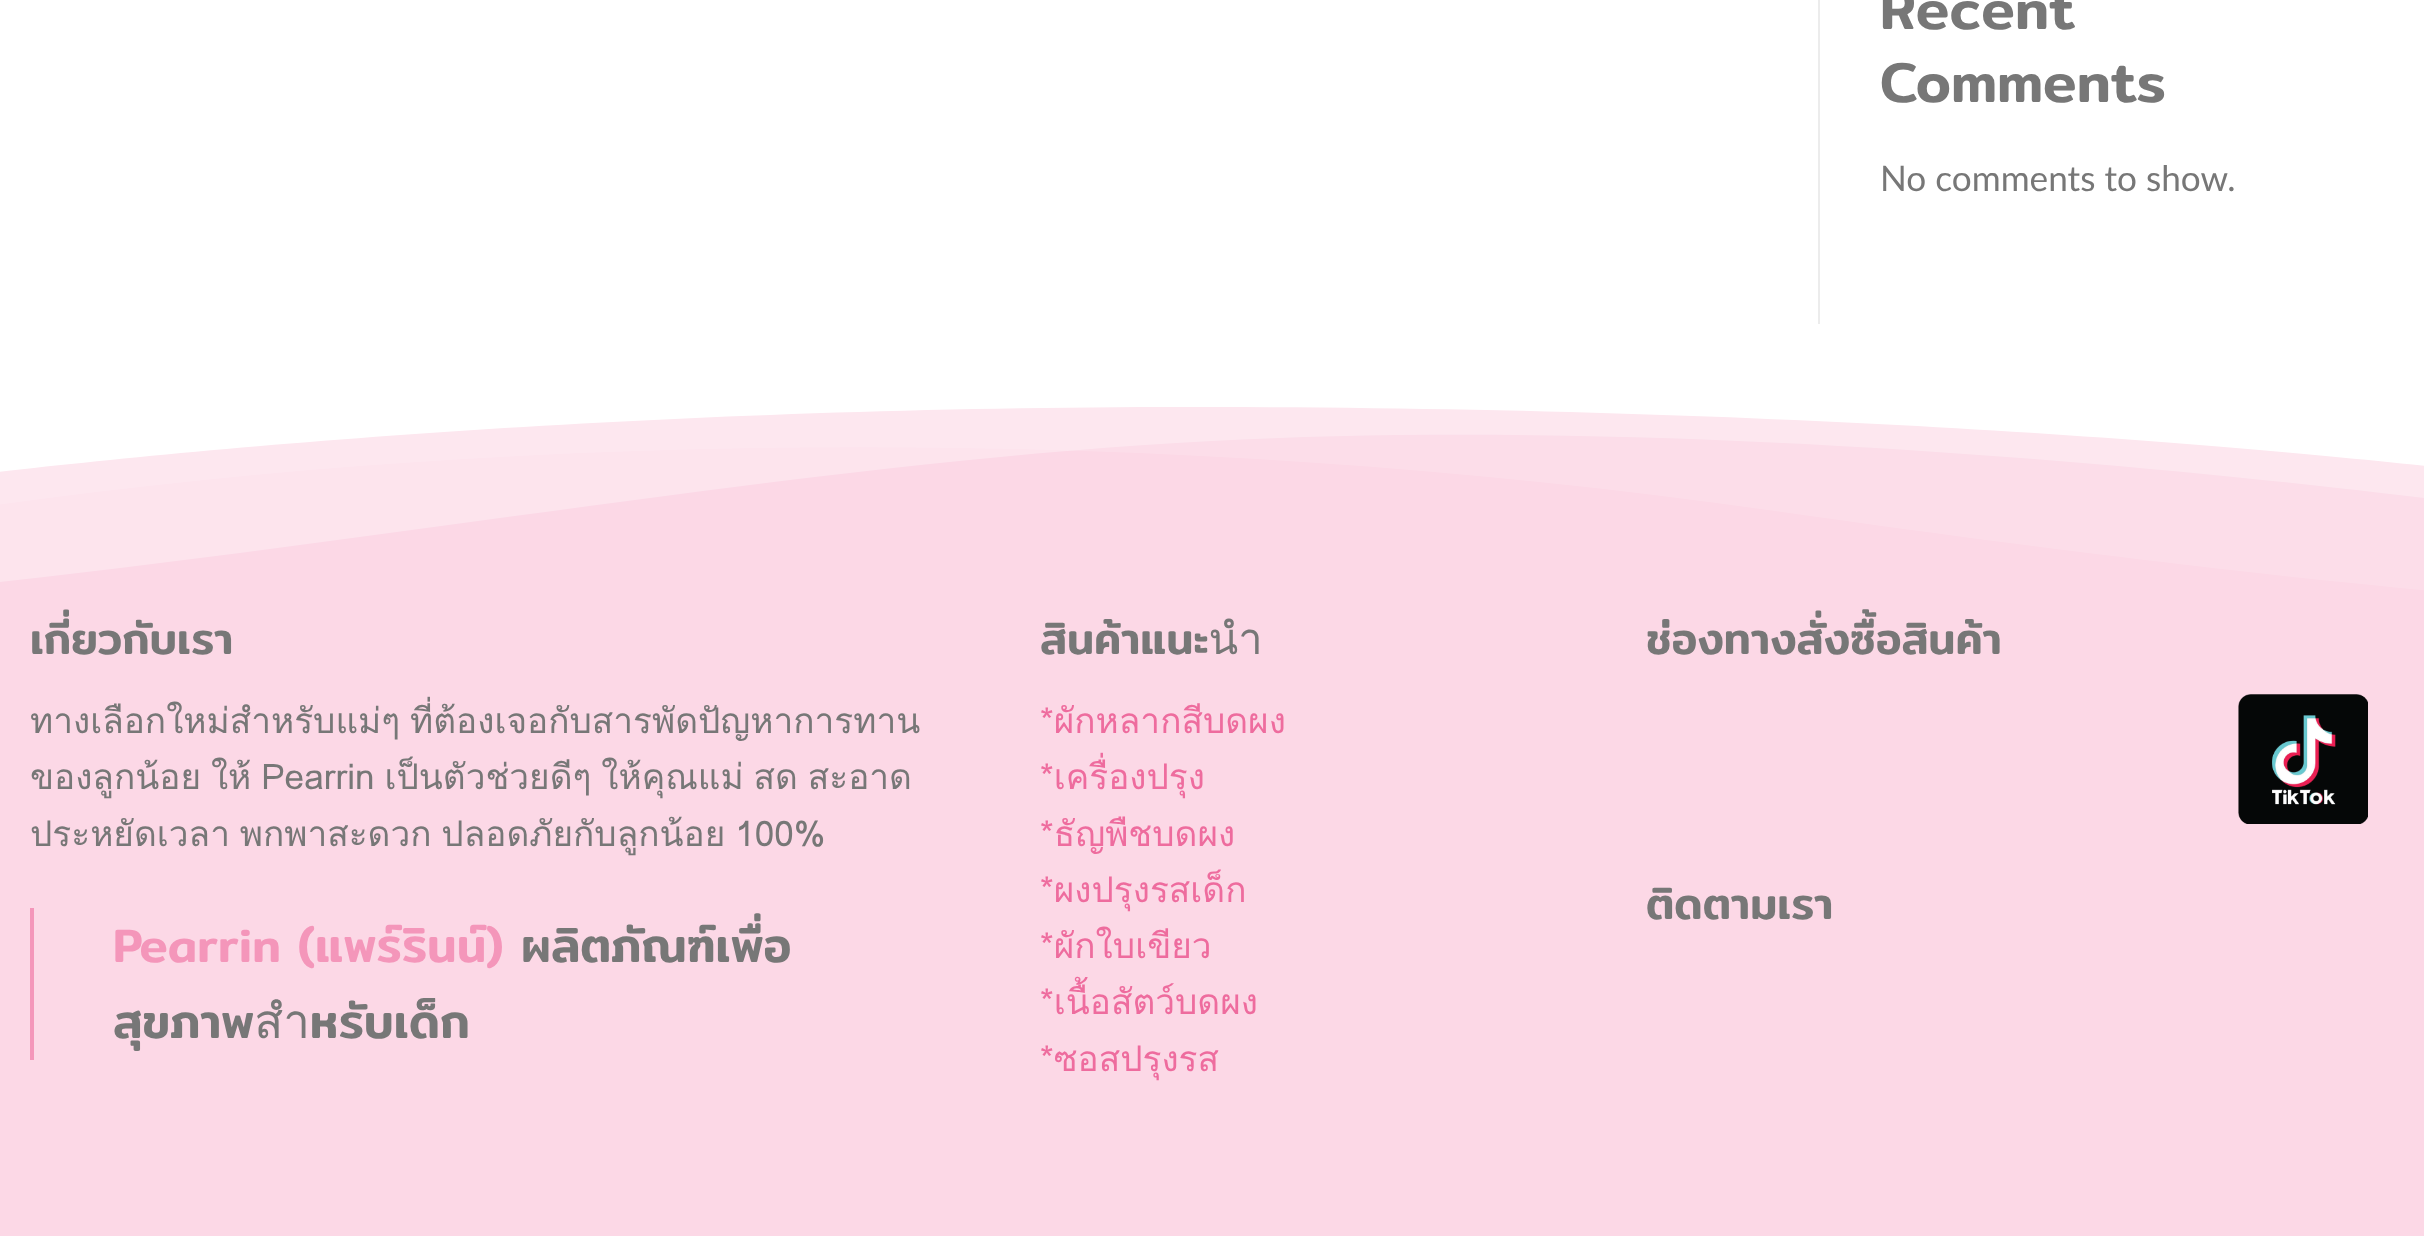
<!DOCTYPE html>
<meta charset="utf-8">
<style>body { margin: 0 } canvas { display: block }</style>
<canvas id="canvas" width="2424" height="1236"></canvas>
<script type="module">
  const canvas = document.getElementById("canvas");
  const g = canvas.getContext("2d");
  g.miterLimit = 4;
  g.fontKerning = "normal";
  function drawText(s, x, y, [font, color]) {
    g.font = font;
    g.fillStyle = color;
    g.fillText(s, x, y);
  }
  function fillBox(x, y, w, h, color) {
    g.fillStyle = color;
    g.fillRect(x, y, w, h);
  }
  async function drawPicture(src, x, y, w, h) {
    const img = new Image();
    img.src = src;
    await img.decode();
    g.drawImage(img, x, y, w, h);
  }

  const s1 = ["500 56.5px Mitr", "#777777"];
  const s2 = ["35.2px Lato", "#777777"];
  const s3 = ["500 43.5px Mitr", "#777777"];
  const s4 = ["35.2px Loma", "#777777"];
  const s5 = ["500 47.5px Mitr", "#F496BA"];
  const s6 = ["500 47.5px Mitr", "#777777"];
  const s7 = ["35.2px Loma", "#EE6C9E"];

  fillBox(0, 0, 2424, 1236, "#FFFFFF");
  fillBox(1818, 0, 2, 324, "#ECECEC");
  drawText("Recent", 1880, 29, s1);
  drawText("Comments", 1880, 102, s1);
  drawText("No comments to show.", 1880, 191, s2);
  fillBox(0, 407, 2424, 829, "#FCD8E6");
  g.save();
  g.beginPath();
  g.rect(0, 382, 2424, 260);
  g.clip();
  g.fillStyle = "rgba(255, 255, 255, 0.15)";
  g.beginPath();
  g.moveTo(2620, 605);
  g.bezierCurveTo(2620, 605, 2370, 596, 1775, 511);
  g.bezierCurveTo(1043, 407, 328, 441, -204, 537);
  g.lineTo(-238, 464);
  g.lineTo(-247, 371);
  g.lineTo(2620, 371);
  g.closePath();
  g.fill();
  g.fillStyle = "rgba(255, 255, 255, 0.3)";
  g.beginPath();
  g.moveTo(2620, 524);
  g.bezierCurveTo(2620, 524, 1857, 407, 1212, 441);
  g.bezierCurveTo(770, 464, 283, 563, -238, 605);
  g.lineTo(-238, 381);
  g.lineTo(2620, 381);
  g.closePath();
  g.fill();
  g.fillStyle = "#FFFFFF";
  g.beginPath();
  g.moveTo(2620, 490);
  g.bezierCurveTo(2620, 490, 2090, 407, 1189, 407);
  g.bezierCurveTo(373, 407, -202, 498, -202, 498);
  g.lineTo(-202, 381);
  g.lineTo(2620, 381);
  g.closePath();
  g.fill();
  g.restore();
  drawText("เกี่ยวกับเรา", 30, 654, s3);
  g.wordSpacing = "-2px";
  drawText("ทางเลือกใหม่สำหรับแม่ๆ ที่ต้องเจอกับสารพัดปัญหาการทาน", 30, 733, s4);
  drawText("ของลูกน้อย ให้ Pearrin เป็นตัวช่วยดีๆ ให้คุณแม่ สด สะอาด", 30, 789, s4);
  drawText("ประหยัดเวลา พกพาสะดวก ปลอดภัยกับลูกน้อย 100%", 30, 846, s4);
  fillBox(30, 908, 4, 152, "#F496BA");
  g.wordSpacing = "0px";
  drawText("Pearrin (แพร์รินน์)", 113, 962, s5);
  drawText("ผลิตภัณฑ์เพื่อ", 521, 962, s6);
  drawText("สุขภาพสำหรับเด็ก", 113, 1038, s6);
  drawText("สินค้าแนะนำ", 1040, 654, s3);
  drawText("*ผักหลากสีบดผง", 1040, 733, s7);
  drawText("*เครื่องปรุง", 1040, 789, s7);
  drawText("*ธัญพืชบดผง", 1040, 846, s7);
  drawText("*ผงปรุงรสเด็ก", 1040, 902, s7);
  drawText("*ผักใบเขียว", 1040, 958, s7);
  drawText("*เนื้อสัตว์บดผง", 1040, 1014, s7);
  drawText("*ซอสปรุงรส", 1040, 1071, s7);
  drawText("ช่องทางสั่งซื้อสินค้า", 1646, 654, s3);
  await drawPicture("pic1.png", 2238, 694, 130, 130);
  drawText("ติดตามเรา", 1646, 919, s3);
</script>
